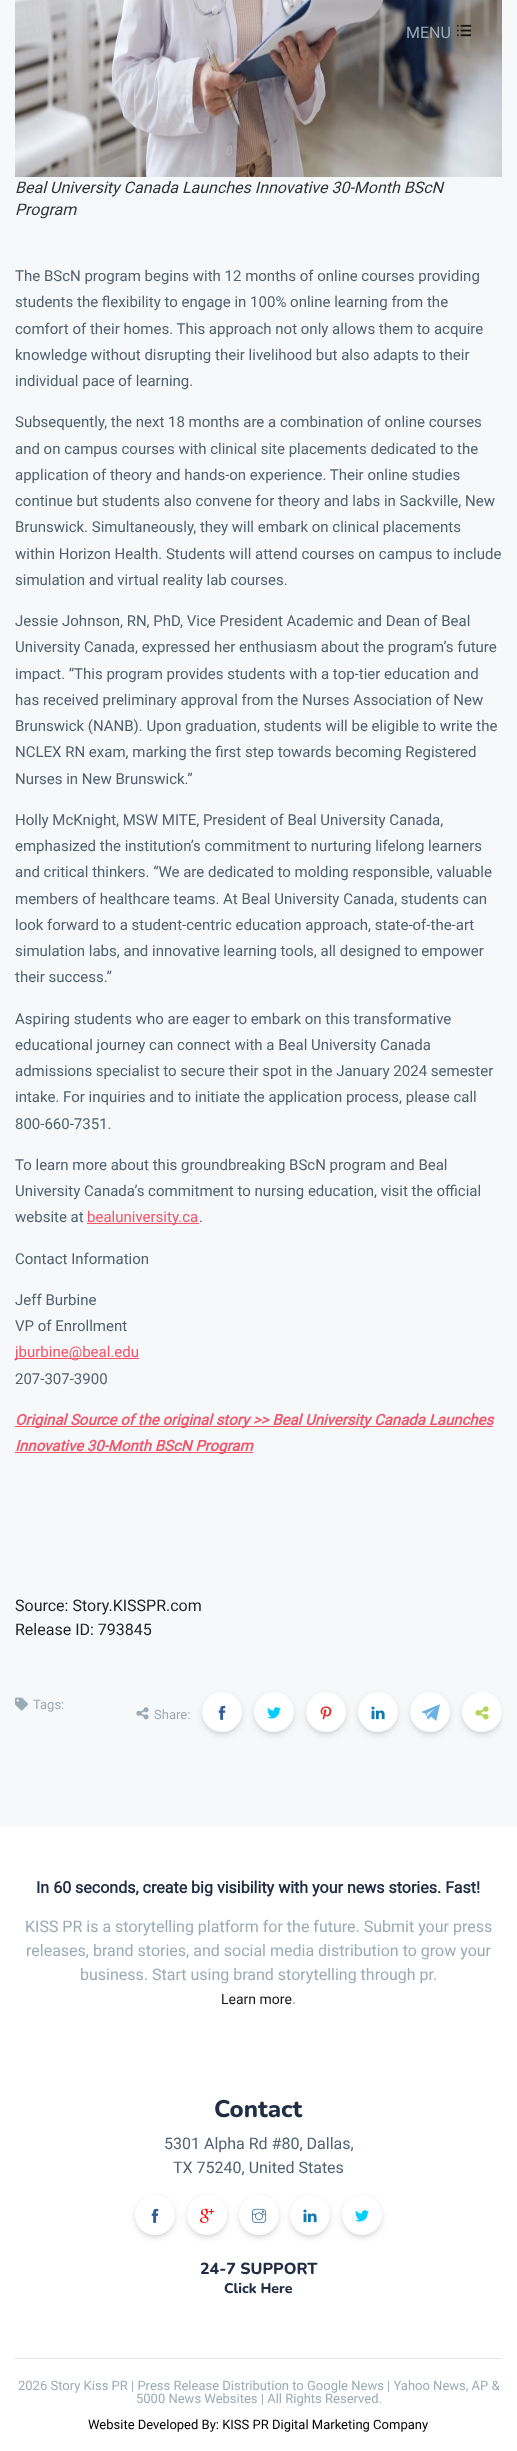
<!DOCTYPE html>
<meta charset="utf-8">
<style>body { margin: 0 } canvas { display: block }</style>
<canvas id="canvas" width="517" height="2451"></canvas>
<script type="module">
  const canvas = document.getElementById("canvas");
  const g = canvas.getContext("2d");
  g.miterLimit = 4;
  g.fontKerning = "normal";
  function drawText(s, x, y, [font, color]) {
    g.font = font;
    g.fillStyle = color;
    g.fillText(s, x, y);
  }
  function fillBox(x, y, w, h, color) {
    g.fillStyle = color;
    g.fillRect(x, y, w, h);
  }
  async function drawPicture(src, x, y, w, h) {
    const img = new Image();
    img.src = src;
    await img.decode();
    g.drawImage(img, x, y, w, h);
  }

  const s1 = ["16px Roboto", "#9BABB6"];
  const s2 = ["italic 16px Roboto", "#333333"];
  const s3 = ["15px Roboto", "#506172"];
  const s4 = ["15px Roboto", "#F2546A"];
  const s5 = ["italic bold 15px Roboto", "#F2546A"];
  const s6 = ["16px Roboto", "#212529"];
  const s7 = ["13px Roboto", "#9BABB6"];
  const s8 = ["bold 16px Roboto", "#212D45"];
  const s9 = ["14px Roboto", "#171616"];
  const s10 = ["800 24px Nunito", "#212D45"];
  const s11 = ["16px Roboto", "#506172"];
  const s12 = ["800 16px Nunito", "#212D45"];
  const s13 = ["800 14px Nunito", "#212D45"];
  const s14 = ["13px Roboto", "#000000"];

  fillBox(0, 0, 517, 2451, "#F7F8F9");
  await drawPicture("pic2.png", 15, 0, 487, 177);
  drawText("MENU", 406, 38, s1);
  await drawPicture("pic1.png", 457, 24, 15, 13);
  drawText("Beal University Canada Launches Innovative 30-Month BScN", 15, 193, s2);
  drawText("Program", 15, 215, s2);
  drawText("The BScN program begins with 12 months of online courses providing", 15, 281, s3);
  drawText("students the flexibility to engage in 100% online learning from the", 15, 307, s3);
  drawText("comfort of their homes. This approach not only allows them to acquire", 15, 334, s3);
  drawText("knowledge without disrupting their livelihood but also adapts to their", 15, 360, s3);
  drawText("individual pace of learning.", 15, 386, s3);
  drawText("Subsequently, the next 18 months are a combination of online courses", 15, 427, s3);
  drawText("and on campus courses with clinical site placements dedicated to the", 15, 454, s3);
  drawText("application of theory and hands-on experience. Their online studies", 15, 480, s3);
  drawText("continue but students also convene for theory and labs in Sackville, New", 15, 506, s3);
  drawText("Brunswick. Simultaneously, they will embark on clinical placements", 15, 532, s3);
  drawText("within Horizon Health. Students will attend courses on campus to include", 15, 559, s3);
  drawText("simulation and virtual reality lab courses.", 15, 585, s3);
  drawText("Jessie Johnson, RN, PhD, Vice President Academic and Dean of Beal", 15, 626, s3);
  drawText("University Canada, expressed her enthusiasm about the program’s future", 15, 652, s3);
  drawText("impact. “This program provides students with a top-tier education and", 15, 679, s3);
  drawText("has received preliminary approval from the Nurses Association of New", 15, 705, s3);
  drawText("Brunswick (NANB). Upon graduation, students will be eligible to write the", 15, 731, s3);
  drawText("NCLEX RN exam, marking the first step towards becoming Registered", 15, 757, s3);
  drawText("Nurses in New Brunswick.”", 15, 784, s3);
  drawText("Holly McKnight, MSW MITE, President of Beal University Canada,", 15, 825, s3);
  drawText("emphasized the institution’s commitment to nurturing lifelong learners", 15, 851, s3);
  drawText("and critical thinkers. “We are dedicated to molding responsible, valuable", 15, 877, s3);
  drawText("members of healthcare teams. At Beal University Canada, students can", 15, 904, s3);
  drawText("look forward to a student-centric education approach, state-of-the-art", 15, 930, s3);
  drawText("simulation labs, and innovative learning tools, all designed to empower", 15, 956, s3);
  drawText("their success.”", 15, 982, s3);
  drawText("Aspiring students who are eager to embark on this transformative", 15, 1024, s3);
  drawText("educational journey can connect with a Beal University Canada", 15, 1050, s3);
  drawText("admissions specialist to secure their spot in the January 2024 semester", 15, 1076, s3);
  drawText("intake. For inquiries and to initiate the application process, please call", 15, 1102, s3);
  drawText("800-660-7351.", 15, 1129, s3);
  drawText("To learn more about this groundbreaking BScN program and Beal", 15, 1170, s3);
  drawText("University Canada’s commitment to nursing education, visit the official", 15, 1196, s3);
  drawText("website at", 15, 1222, s3);
  fillBox(87, 1223, 112, 1, "#F2546A");
  drawText("bealuniversity.ca", 87, 1222, s4);
  drawText(".", 199, 1222, s3);
  drawText("Contact Information", 15, 1264, s3);
  drawText("Jeff Burbine", 15, 1305, s3);
  drawText("VP of Enrollment", 15, 1331, s3);
  fillBox(15, 1358, 124, 1, "#F2546A");
  drawText("jburbine@beal.edu", 15, 1357, s4);
  drawText("207-307-3900", 15, 1384, s3);
  fillBox(15, 1426, 478, 1, "#F2546A");
  drawText("Original Source of the original story >> Beal University Canada Launches", 15, 1425, s5);
  fillBox(15, 1452, 238, 1, "#F2546A");
  drawText("Innovative 30-Month BScN Program", 15, 1451, s5);
  drawText("Source: Story.KISSPR.com", 15, 1611, s6);
  drawText("Release ID: 793845", 15, 1635, s6);
  await drawPicture("pic3.png", 15, 1697, 13, 14);
  drawText("Tags:", 33, 1709, s7);
  await drawPicture("pic4.png", 136, 1707, 13, 13);
  drawText("Share:", 154, 1719, s7);
  g.fillStyle = "rgba(0, 0, 0, 0.15)";
  g.filter = "blur(4px)";
  g.beginPath();
  g.roundRect(204, 1697, 36, 36, 18);
  g.fill();
  g.filter = "none";
  g.filter = "blur(2.5px)";
  g.beginPath();
  g.roundRect(204, 1696, 36, 36, 18);
  g.fill();
  g.filter = "none";
  g.fillStyle = "#FFFFFF";
  g.beginPath();
  g.arc(222, 1712, 20, 0, Math.PI * 2);
  g.fill();
  await drawPicture("pic5.png", 218, 1705, 8, 15);
  g.fillStyle = "rgba(0, 0, 0, 0.15)";
  g.filter = "blur(4px)";
  g.beginPath();
  g.roundRect(256, 1697, 36, 36, 18);
  g.fill();
  g.filter = "none";
  g.filter = "blur(2.5px)";
  g.beginPath();
  g.roundRect(256, 1696, 36, 36, 18);
  g.fill();
  g.filter = "none";
  g.fillStyle = "#FFFFFF";
  g.beginPath();
  g.arc(274, 1712, 20, 0, Math.PI * 2);
  g.fill();
  await drawPicture("pic6.png", 267, 1707, 14, 12);
  g.fillStyle = "rgba(0, 0, 0, 0.15)";
  g.filter = "blur(4px)";
  g.beginPath();
  g.roundRect(308, 1697, 36, 36, 18);
  g.fill();
  g.filter = "none";
  g.filter = "blur(2.5px)";
  g.beginPath();
  g.roundRect(308, 1696, 36, 36, 18);
  g.fill();
  g.filter = "none";
  g.fillStyle = "#FFFFFF";
  g.beginPath();
  g.arc(326, 1712, 20, 0, Math.PI * 2);
  g.fill();
  await drawPicture("pic7.png", 320, 1706, 12, 14);
  g.fillStyle = "rgba(0, 0, 0, 0.15)";
  g.filter = "blur(4px)";
  g.beginPath();
  g.roundRect(360, 1697, 36, 36, 18);
  g.fill();
  g.filter = "none";
  g.filter = "blur(2.5px)";
  g.beginPath();
  g.roundRect(360, 1696, 36, 36, 18);
  g.fill();
  g.filter = "none";
  g.fillStyle = "#FFFFFF";
  g.beginPath();
  g.arc(378, 1712, 20, 0, Math.PI * 2);
  g.fill();
  await drawPicture("pic8.png", 371, 1706, 14, 14);
  g.fillStyle = "rgba(0, 0, 0, 0.15)";
  g.filter = "blur(4px)";
  g.beginPath();
  g.roundRect(412, 1697, 36, 36, 18);
  g.fill();
  g.filter = "none";
  g.filter = "blur(2.5px)";
  g.beginPath();
  g.roundRect(412, 1696, 36, 36, 18);
  g.fill();
  g.filter = "none";
  g.fillStyle = "#FFFFFF";
  g.beginPath();
  g.arc(430, 1712, 20, 0, Math.PI * 2);
  g.fill();
  await drawPicture("pic9.png", 421, 1704, 19, 17);
  g.save();
  g.beginPath();
  g.rect(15, 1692, 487, 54);
  g.clip();
  g.fillStyle = "rgba(0, 0, 0, 0.15)";
  g.filter = "blur(4px)";
  g.beginPath();
  g.roundRect(464, 1697, 36, 36, 18);
  g.fill();
  g.filter = "none";
  g.restore();
  g.fillStyle = "rgba(0, 0, 0, 0.15)";
  g.filter = "blur(2.5px)";
  g.beginPath();
  g.roundRect(464, 1696, 36, 36, 18);
  g.fill();
  g.filter = "none";
  g.fillStyle = "#FFFFFF";
  g.beginPath();
  g.arc(482, 1712, 20, 0, Math.PI * 2);
  g.fill();
  await drawPicture("pic10.png", 475, 1706, 14, 14);
  fillBox(0, 1826, 517, 625, "#FFFFFF");
  drawText("In 60 seconds, create big visibility with your news stories. Fast!", 36, 1893, s8);
  drawText("KISS PR is a storytelling platform for the future. Submit your press", 25, 1932, s1);
  drawText("releases, brand stories, and social media distribution to grow your", 26, 1956, s1);
  drawText("business. Start using brand storytelling through pr.", 80, 1980, s1);
  drawText("Learn more", 221, 2004, s9);
  drawText(".", 292, 2004, s1);
  drawText("Contact", 214, 2117, s10);
  drawText("5301 Alpha Rd #80, Dallas,", 164, 2149, s11);
  drawText("TX 75240, United States", 173, 2173, s11);
  g.fillStyle = "rgba(0, 0, 0, 0.15)";
  g.filter = "blur(4px)";
  g.beginPath();
  g.roundRect(137, 2200, 36, 36, 18);
  g.fill();
  g.filter = "none";
  g.filter = "blur(2.5px)";
  g.beginPath();
  g.roundRect(137, 2199, 36, 36, 18);
  g.fill();
  g.filter = "none";
  g.fillStyle = "#FFFFFF";
  g.beginPath();
  g.arc(155, 2215, 20, 0, Math.PI * 2);
  g.fill();
  await drawPicture("pic5.png", 151, 2208, 8, 15);
  g.fillStyle = "rgba(0, 0, 0, 0.15)";
  g.filter = "blur(4px)";
  g.beginPath();
  g.roundRect(189, 2200, 36, 36, 18);
  g.fill();
  g.filter = "none";
  g.filter = "blur(2.5px)";
  g.beginPath();
  g.roundRect(189, 2199, 36, 36, 18);
  g.fill();
  g.filter = "none";
  g.fillStyle = "#FFFFFF";
  g.beginPath();
  g.arc(207, 2215, 20, 0, Math.PI * 2);
  g.fill();
  await drawPicture("pic11.png", 200, 2208, 14, 15);
  g.fillStyle = "rgba(0, 0, 0, 0.15)";
  g.filter = "blur(4px)";
  g.beginPath();
  g.roundRect(241, 2200, 36, 36, 18);
  g.fill();
  g.filter = "none";
  g.filter = "blur(2.5px)";
  g.beginPath();
  g.roundRect(241, 2199, 36, 36, 18);
  g.fill();
  g.filter = "none";
  g.fillStyle = "#FFFFFF";
  g.beginPath();
  g.arc(259, 2215, 20, 0, Math.PI * 2);
  g.fill();
  await drawPicture("pic12.png", 252, 2208, 14, 15);
  g.fillStyle = "rgba(0, 0, 0, 0.15)";
  g.filter = "blur(4px)";
  g.beginPath();
  g.roundRect(292, 2200, 36, 36, 18);
  g.fill();
  g.filter = "none";
  g.filter = "blur(2.5px)";
  g.beginPath();
  g.roundRect(292, 2199, 36, 36, 18);
  g.fill();
  g.filter = "none";
  g.fillStyle = "#FFFFFF";
  g.beginPath();
  g.arc(310, 2215, 20, 0, Math.PI * 2);
  g.fill();
  await drawPicture("pic8.png", 303, 2209, 14, 14);
  g.fillStyle = "rgba(0, 0, 0, 0.15)";
  g.filter = "blur(4px)";
  g.beginPath();
  g.roundRect(344, 2200, 36, 36, 18);
  g.fill();
  g.filter = "none";
  g.filter = "blur(2.5px)";
  g.beginPath();
  g.roundRect(344, 2199, 36, 36, 18);
  g.fill();
  g.filter = "none";
  g.fillStyle = "#FFFFFF";
  g.beginPath();
  g.arc(362, 2215, 20, 0, Math.PI * 2);
  g.fill();
  await drawPicture("pic6.png", 355, 2210, 14, 12);
  drawText("24-7 SUPPORT", 200, 2274, s12);
  drawText("Click Here", 224, 2293, s13);
  fillBox(15, 2358, 487, 1, "#E6E6E6");
  drawText("2026 Story Kiss PR | Press Release Distribution to Google News | Yahoo News, AP &", 18, 2390, s7);
  drawText("5000 News Websites | All Rights Reserved.", 136, 2403, s7);
  drawText("Website Developed By: KISS PR Digital Marketing Company", 88, 2429, s14);
</script>
